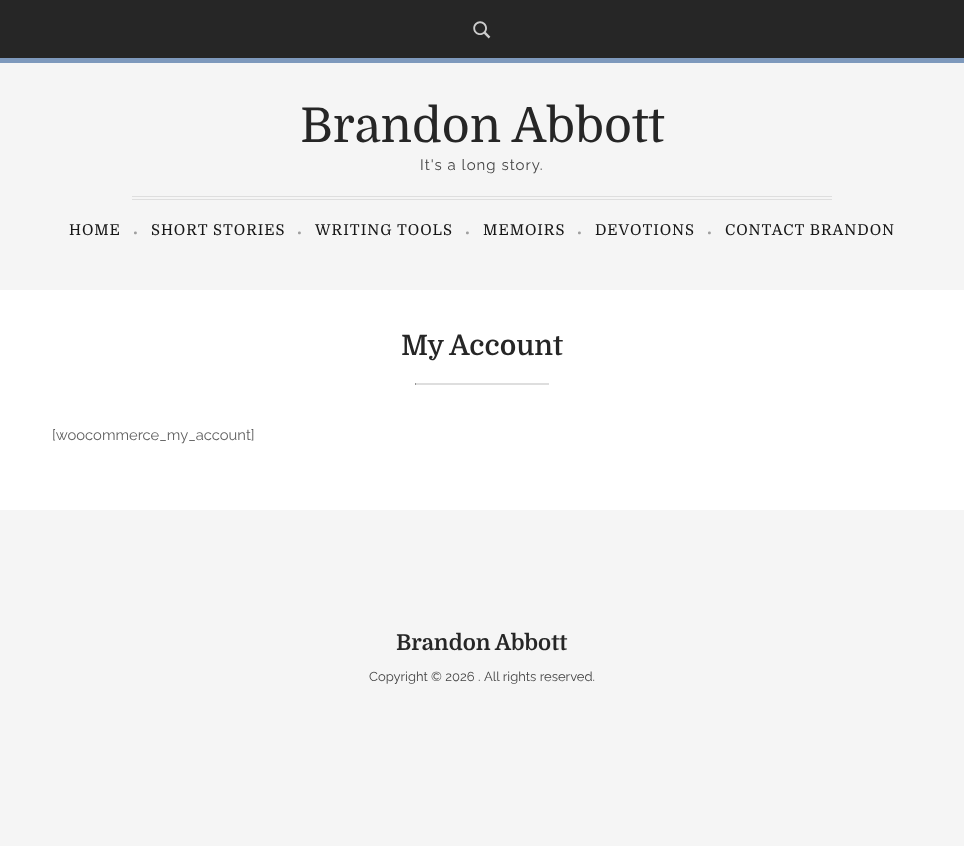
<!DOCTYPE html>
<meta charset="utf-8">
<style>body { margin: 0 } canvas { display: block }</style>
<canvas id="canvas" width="964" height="846"></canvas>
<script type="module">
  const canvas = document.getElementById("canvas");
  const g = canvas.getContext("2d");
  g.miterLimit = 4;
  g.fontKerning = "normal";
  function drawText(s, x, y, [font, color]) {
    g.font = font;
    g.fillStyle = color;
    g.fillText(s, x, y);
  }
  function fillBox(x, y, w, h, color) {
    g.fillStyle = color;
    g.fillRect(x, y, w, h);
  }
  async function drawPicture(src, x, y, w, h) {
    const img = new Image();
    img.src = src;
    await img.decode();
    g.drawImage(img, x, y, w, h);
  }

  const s1 = ["48px Domine", "#262626"];
  const s2 = ["15px Raleway", "#444444"];
  const s3 = ["15px Domine", "#161616"];
  const s4 = ["12px Domine", "#9F9F9F"];
  const s5 = ["600 28px Domine", "#262626"];
  const s6 = ["14.75px Raleway", "#5F5F5F"];
  const s7 = ["bold 22px Domine", "#262626"];
  const s8 = ["13px Raleway", "#444444"];

  fillBox(0, 0, 964, 846, "#F5F5F5");
  fillBox(0, 0, 964, 58, "#262626");
  fillBox(0, 58, 964, 5, "#7E99BC");
  await drawPicture("pic1.png", 473, 21, 18, 18);
  drawText("Brandon Abbott", 300, 142, s1);
  g.letterSpacing = "1px";
  drawText("It's a long story.", 420, 170, s2);
  fillBox(132, 196, 700, 1, "#DEDEDE");
  fillBox(132, 199, 700, 1, "#DEDEDE");
  drawText("HOME", 69, 235, s3);
  drawText("•", 133, 237, s4);
  drawText("SHORT STORIES", 151, 235, s3);
  drawText("•", 297, 237, s4);
  drawText("WRITING TOOLS", 315, 235, s3);
  drawText("•", 465, 237, s4);
  drawText("MEMOIRS", 483, 235, s3);
  drawText("•", 577, 237, s4);
  drawText("DEVOTIONS", 595, 235, s3);
  drawText("•", 707, 237, s4);
  drawText("CONTACT BRANDON", 725, 235, s3);
  fillBox(0, 290, 964, 220, "#FFFFFF");
  g.letterSpacing = "0px";
  drawText("My Account", 401, 355, s5);
  fillBox(415, 383, 134, 1, "#DEDEDE");
  fillBox(548, 383, 1, 2, "#DEDEDE");
  fillBox(415, 384, 134, 1, "#DEDEDE");
  fillBox(415, 383, 1, 2, "#949494");
  drawText("[woocommerce_my_account]", 52, 440, s6);
  drawText("Brandon Abbott", 396, 650, s7);
  drawText("Copyright © 2026 .", 369, 681, s8);
  drawText("All rights reserved.", 484, 681, s8);
</script>
